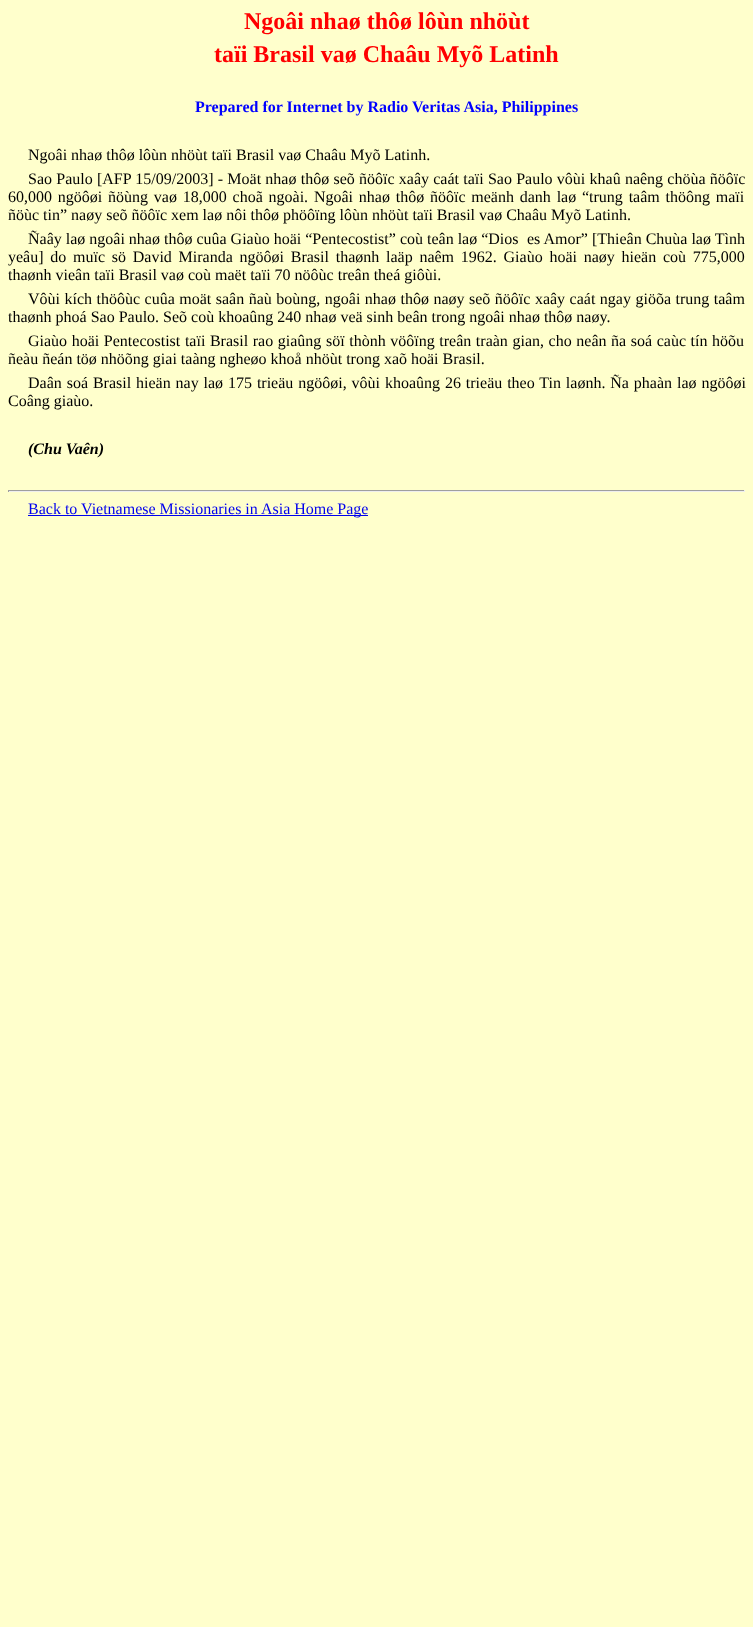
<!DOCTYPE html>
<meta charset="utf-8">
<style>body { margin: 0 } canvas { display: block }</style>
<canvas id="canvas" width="753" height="1627"></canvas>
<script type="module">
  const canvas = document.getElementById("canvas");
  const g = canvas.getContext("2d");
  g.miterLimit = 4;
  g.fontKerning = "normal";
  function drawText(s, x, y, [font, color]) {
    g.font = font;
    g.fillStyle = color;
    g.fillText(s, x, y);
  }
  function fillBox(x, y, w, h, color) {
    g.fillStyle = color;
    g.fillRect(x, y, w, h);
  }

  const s1 = ["bold 24px Liberation Serif", "#FF0000"];
  const s2 = ["bold 16px Liberation Serif", "#0000FF"];
  const s3 = ["16px Liberation Serif", "#000000"];
  const s4 = ["italic bold 16px Liberation Serif", "#000000"];
  const s5 = ["16px Liberation Serif", "#0000EE"];

  fillBox(0, 0, 753, 1627, "#FFFFCC");
  drawText("Ngoâi nhaø thôø lôùn nhöùt", 244, 29, s1);
  drawText("taïi Brasil vaø Chaâu Myõ Latinh", 214, 62, s1);
  drawText("Prepared for Internet by Radio Veritas Asia, Philippines", 195, 112, s2);
  drawText("Ngoâi nhaø thôø lôùn nhöùt taïi Brasil vaø Chaâu Myõ Latinh.", 28, 160, s3);
  g.wordSpacing = "0.25px";
  drawText("Sao Paulo [AFP 15/09/2003] - Moät nhaø thôø seõ ñöôïc xaây caát taïi Sao Paulo vôùi khaû naêng chöùa ñöôïc", 28, 184, s3);
  g.wordSpacing = "1.8px";
  drawText("60,000 ngöôøi ñöùng vaø 18,000 choã ngoài. Ngoâi nhaø thôø ñöôïc meänh danh laø “trung taâm thöông maïi", 8, 202, s3);
  g.wordSpacing = "0px";
  drawText("ñöùc tin” naøy seõ ñöôïc xem laø nôi thôø phöôïng lôùn nhöùt taïi Brasil vaø Chaâu Myõ Latinh.", 8, 220, s3);
  drawText("Ñaây laø ngoâi nhaø thôø cuûa Giaùo hoäi “Pentecostist” coù teân laø “Dios", 28, 244, s3);
  drawText("es Amor” [Thieân Chuùa laø Tình", 527, 244, s3);
  g.wordSpacing = "2.75px";
  drawText("yeâu] do muïc sö David Miranda ngöôøi Brasil thaønh laäp naêm 1962. Giaùo hoäi naøy hieän coù 775,000", 8, 262, s3);
  g.wordSpacing = "0px";
  drawText("thaønh vieân taïi Brasil vaø coù maët taïi 70 nöôùc treân theá giôùi.", 8, 280, s3);
  g.wordSpacing = "0.5px";
  drawText("Vôùi kích thöôùc cuûa moät saân ñaù boùng, ngoâi nhaø thôø naøy seõ ñöôïc xaây caát ngay giöõa trung taâm", 28, 304, s3);
  g.wordSpacing = "0px";
  drawText("thaønh phoá Sao Paulo. Seõ coù khoaûng 240 nhaø veä sinh beân trong ngoâi nhaø thôø naøy.", 8, 322, s3);
  g.wordSpacing = "0.6px";
  drawText("Giaùo hoäi Pentecostist taïi Brasil rao giaûng söï thònh vöôïng treân traàn gian, cho neân ña soá caùc tín höõu", 28, 346, s3);
  g.wordSpacing = "0px";
  drawText("ñeàu ñeán töø nhöõng giai taàng ngheøo khoå nhöùt trong xaõ hoäi Brasil.", 8, 364, s3);
  g.wordSpacing = "0.9px";
  drawText("Daân soá Brasil hieän nay laø 175 trieäu ngöôøi, vôùi khoaûng 26 trieäu theo Tin laønh. Ña phaàn laø ngöôøi", 28, 388, s3);
  g.wordSpacing = "0px";
  drawText("Coâng giaùo.", 8, 406, s3);
  drawText("(Chu Vaên)", 28, 454, s4);
  fillBox(8, 490, 737, 1, "#9F9F9F");
  fillBox(744, 490, 1, 2, "#EEEEEE");
  fillBox(8, 491, 737, 1, "#EEEEEE");
  fillBox(8, 490, 1, 2, "#9F9F9F");
  fillBox(28, 515, 340, 1, "#0000EE");
  drawText("Back to Vietnamese Missionaries in Asia Home Page", 28, 514, s5);
</script>
